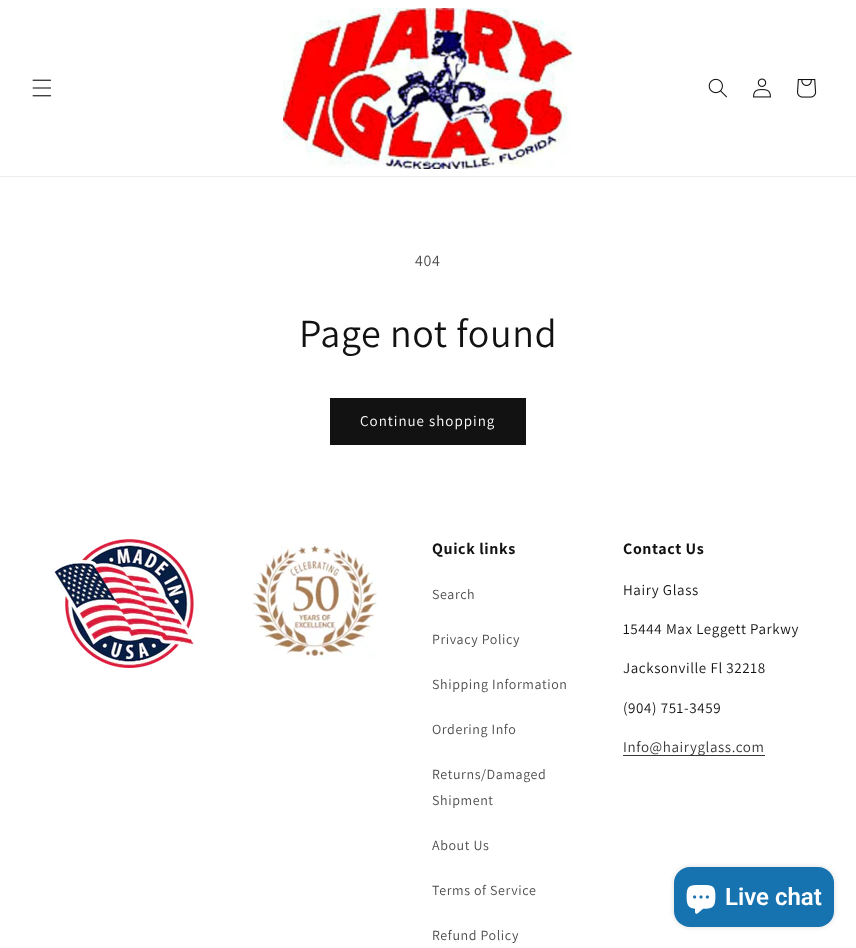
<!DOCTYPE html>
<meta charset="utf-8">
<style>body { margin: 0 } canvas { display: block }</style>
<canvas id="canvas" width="856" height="948"></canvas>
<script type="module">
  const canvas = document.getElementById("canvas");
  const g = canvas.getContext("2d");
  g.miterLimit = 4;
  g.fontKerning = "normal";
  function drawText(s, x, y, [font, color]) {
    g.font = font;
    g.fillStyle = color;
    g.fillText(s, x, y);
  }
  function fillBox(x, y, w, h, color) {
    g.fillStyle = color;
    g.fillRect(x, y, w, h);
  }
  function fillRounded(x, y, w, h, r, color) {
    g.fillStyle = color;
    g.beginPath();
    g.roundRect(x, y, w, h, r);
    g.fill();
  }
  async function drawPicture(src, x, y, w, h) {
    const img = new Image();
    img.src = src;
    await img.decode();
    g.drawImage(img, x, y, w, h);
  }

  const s1 = ["16px Assistant", "#4D4D4D"];
  const s2 = ["40px Assistant", "#121212"];
  const s3 = ["15px Assistant", "#FFFFFF"];
  const s4 = ["bold 16px Assistant", "#121212"];
  const s5 = ["14px Assistant", "#4D4D4D"];
  const s6 = ["15px Assistant", "#121212"];
  const s7 = ["15px Assistant", "#353535"];
  const s8 = ["600 24px Roboto", "#FFFFFF"];

  fillBox(0, 0, 856, 948, "#FFFFFF");
  fillBox(0, 176, 856, 1, "#ECECEC");
  await drawPicture("pic1.png", 32, 79, 20, 18);
  await drawPicture("pic2.png", 283, 8, 290, 161);
  await drawPicture("pic3.png", 708, 78, 19, 20);
  await drawPicture("pic4.png", 753, 78, 18, 20);
  await drawPicture("pic5.png", 797, 79, 20, 19);
  g.letterSpacing = "0.6px";
  drawText("404", 415, 266, s1);
  drawText("Page not found", 299, 347, s2);
  fillBox(330, 398, 196, 47, "#121212");
  g.letterSpacing = "1px";
  drawText("Continue shopping", 360, 426, s3);
  await drawPicture("pic6.png", 51, 539, 144, 129);
  await drawPicture("pic7.png", 253, 545, 124, 114);
  g.letterSpacing = "0.6px";
  drawText("Quick links", 432, 554, s4);
  drawText("Search", 432, 599, s5);
  drawText("Privacy Policy", 432, 644, s5);
  drawText("Shipping Information", 432, 689, s5);
  drawText("Ordering Info", 432, 734, s5);
  drawText("Returns/Damaged", 432, 779, s5);
  drawText("Shipment", 432, 805, s5);
  drawText("About Us", 432, 850, s5);
  drawText("Terms of Service", 432, 895, s5);
  drawText("Refund Policy", 432, 940, s5);
  drawText("Contact Us", 623, 554, s4);
  drawText("Hairy Glass", 623, 595, s6);
  drawText("15444 Max Leggett Parkwy", 623, 634, s6);
  drawText("Jacksonville Fl 32218", 623, 673, s6);
  drawText("(904) 751-3459", 623, 713, s6);
  fillBox(623, 755, 142, 1, "#363636");
  drawText("Info@hairyglass.com", 623, 752, s7);
  g.fillStyle = "rgba(0, 0, 0, 0.15)";
  g.filter = "blur(2.5px)";
  g.beginPath();
  g.roundRect(674, 867, 160, 60, 16);
  g.fill();
  g.filter = "none";
  fillRounded(674, 867, 160, 60, 16, "#1773B0");
  await drawPicture("pic8.png", 686, 885, 30, 29);
  g.letterSpacing = "0px";
  drawText("Live chat", 725, 905, s8);
</script>
